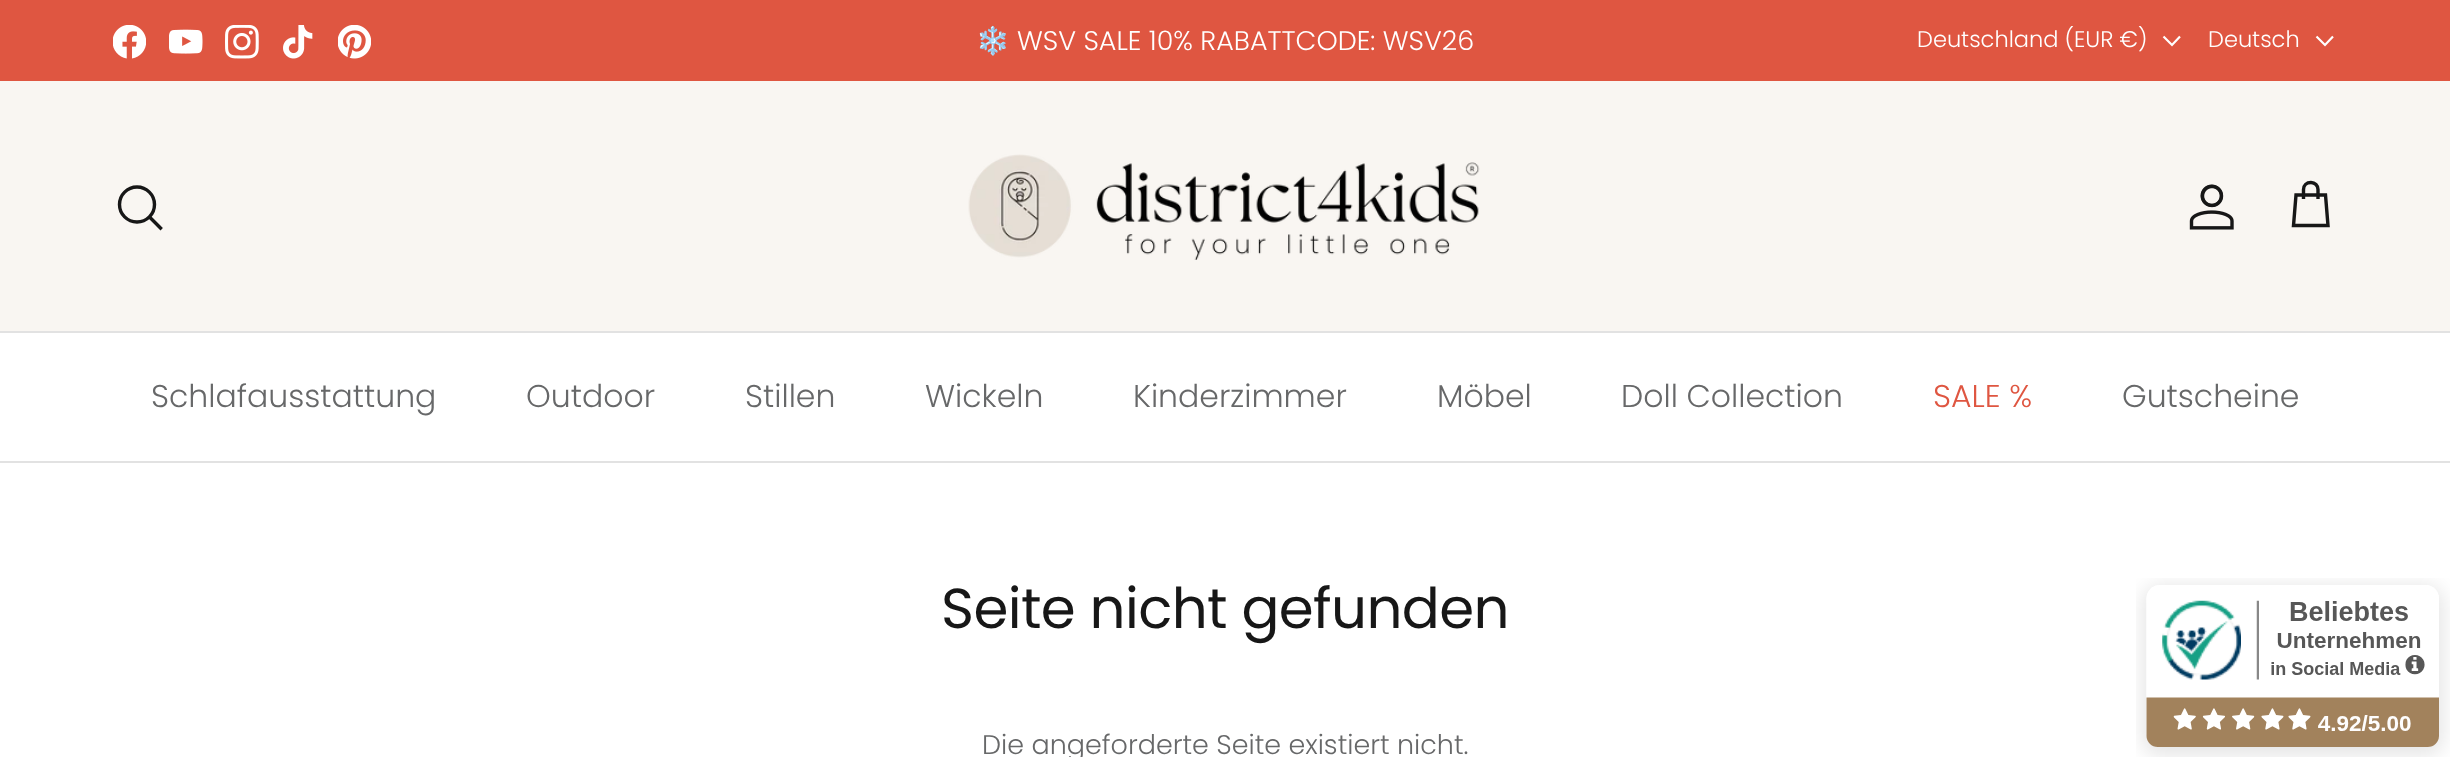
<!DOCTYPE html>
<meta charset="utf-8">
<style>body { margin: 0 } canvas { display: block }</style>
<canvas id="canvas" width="2450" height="757"></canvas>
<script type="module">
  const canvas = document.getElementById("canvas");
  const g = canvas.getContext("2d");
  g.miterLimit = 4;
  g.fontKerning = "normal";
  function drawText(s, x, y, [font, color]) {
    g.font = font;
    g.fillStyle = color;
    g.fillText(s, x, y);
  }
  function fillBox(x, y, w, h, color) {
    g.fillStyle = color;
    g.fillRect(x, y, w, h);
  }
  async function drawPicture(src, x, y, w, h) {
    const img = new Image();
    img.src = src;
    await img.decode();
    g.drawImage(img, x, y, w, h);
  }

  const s1 = ["27px Noto Color Emoji", "#FFFFFF"];
  const s2 = ["300 27px Poppins", "#FFFFFF"];
  const s3 = ["300 22.5px Poppins", "#FFFFFF"];
  const s4 = ["300 31.5px Poppins", "#676869"];
  const s5 = ["300 31.5px Poppins", "#DF5641"];
  const s6 = ["56.25px Poppins", "#171717"];
  const s7 = ["300 27px Poppins", "#676869"];

  fillBox(0, 0, 2450, 757, "#FFFFFF");
  fillBox(0, 0, 2450, 81, "#DF5641");
  await drawPicture("pic1.png", 113, 25, 33, 34);
  await drawPicture("pic2.png", 169, 29, 34, 25);
  await drawPicture("pic3.png", 225, 25, 34, 34);
  await drawPicture("pic4.png", 283, 25, 30, 34);
  await drawPicture("pic5.png", 338, 25, 33, 34);
  drawText("❄️", 976, 50, s1);
  drawText("WSV SALE 10% RABATTCODE: WSV26", 1017, 50, s2);
  drawText("Deutschland (EUR €)", 1917, 47, s3);
  g.beginPath();
  g.moveTo(2180, 36.5);
  g.lineTo(2172, 45);
  g.lineTo(2163.5, 36.5);
  g.strokeStyle = "#FFFFFF";
  g.lineWidth = 2.2;
  g.stroke();
  drawText("Deutsch", 2208, 47, s3);
  g.beginPath();
  g.moveTo(2333, 36.5);
  g.lineTo(2325, 45);
  g.lineTo(2316.5, 36.5);
  g.stroke();
  fillBox(0, 81, 2450, 250, "#F9F6F2");
  fillBox(0, 331, 2450, 2, "#E2E2E2");
  g.beginPath();
  g.arc(137, 204.5, 17.5, 0, Math.PI * 2);
  g.strokeStyle = "#171717";
  g.lineWidth = 3.4;
  g.stroke();
  g.beginPath();
  g.moveTo(150.5, 218);
  g.lineTo(160.5, 228);
  g.lineCap = "square";
  g.stroke();
  await drawPicture("pic6.png", 968, 154, 512, 106);
  await drawPicture("pic7.png", 2189, 184, 45, 46);
  g.beginPath();
  g.moveTo(2318, 199);
  g.lineTo(2318, 189.5);
  g.bezierCurveTo(2318, 185.5, 2315, 182.5, 2311, 182.5);
  g.bezierCurveTo(2306.5, 182.5, 2303.5, 185.5, 2303.5, 189.5);
  g.lineTo(2303.5, 199);
  g.moveTo(2296, 195);
  g.lineTo(2325.5, 195);
  g.lineTo(2328, 225.5);
  g.lineTo(2293.5, 225.5);
  g.closePath();
  g.lineCap = "butt";
  g.stroke();
  fillBox(0, 461, 2450, 2, "#E2E2E2");
  drawText("Schlafausstattung", 151, 407, s4);
  drawText("Outdoor", 526, 407, s4);
  drawText("Stillen", 745, 407, s4);
  drawText("Wickeln", 925, 407, s4);
  drawText("Kinderzimmer", 1133, 407, s4);
  drawText("Möbel", 1437, 407, s4);
  drawText("Doll Collection", 1621, 407, s4);
  drawText("SALE %", 1933, 407, s5);
  drawText("Gutscheine", 2122, 407, s4);
  g.letterSpacing = "-0.6px";
  drawText("Seite nicht gefunden", 941, 628, s6);
  g.letterSpacing = "0px";
  drawText("Die angeforderte Seite existiert nicht.", 982, 754, s7);
  await drawPicture("pic8.png", 2136, 578, 314, 179);
</script>
